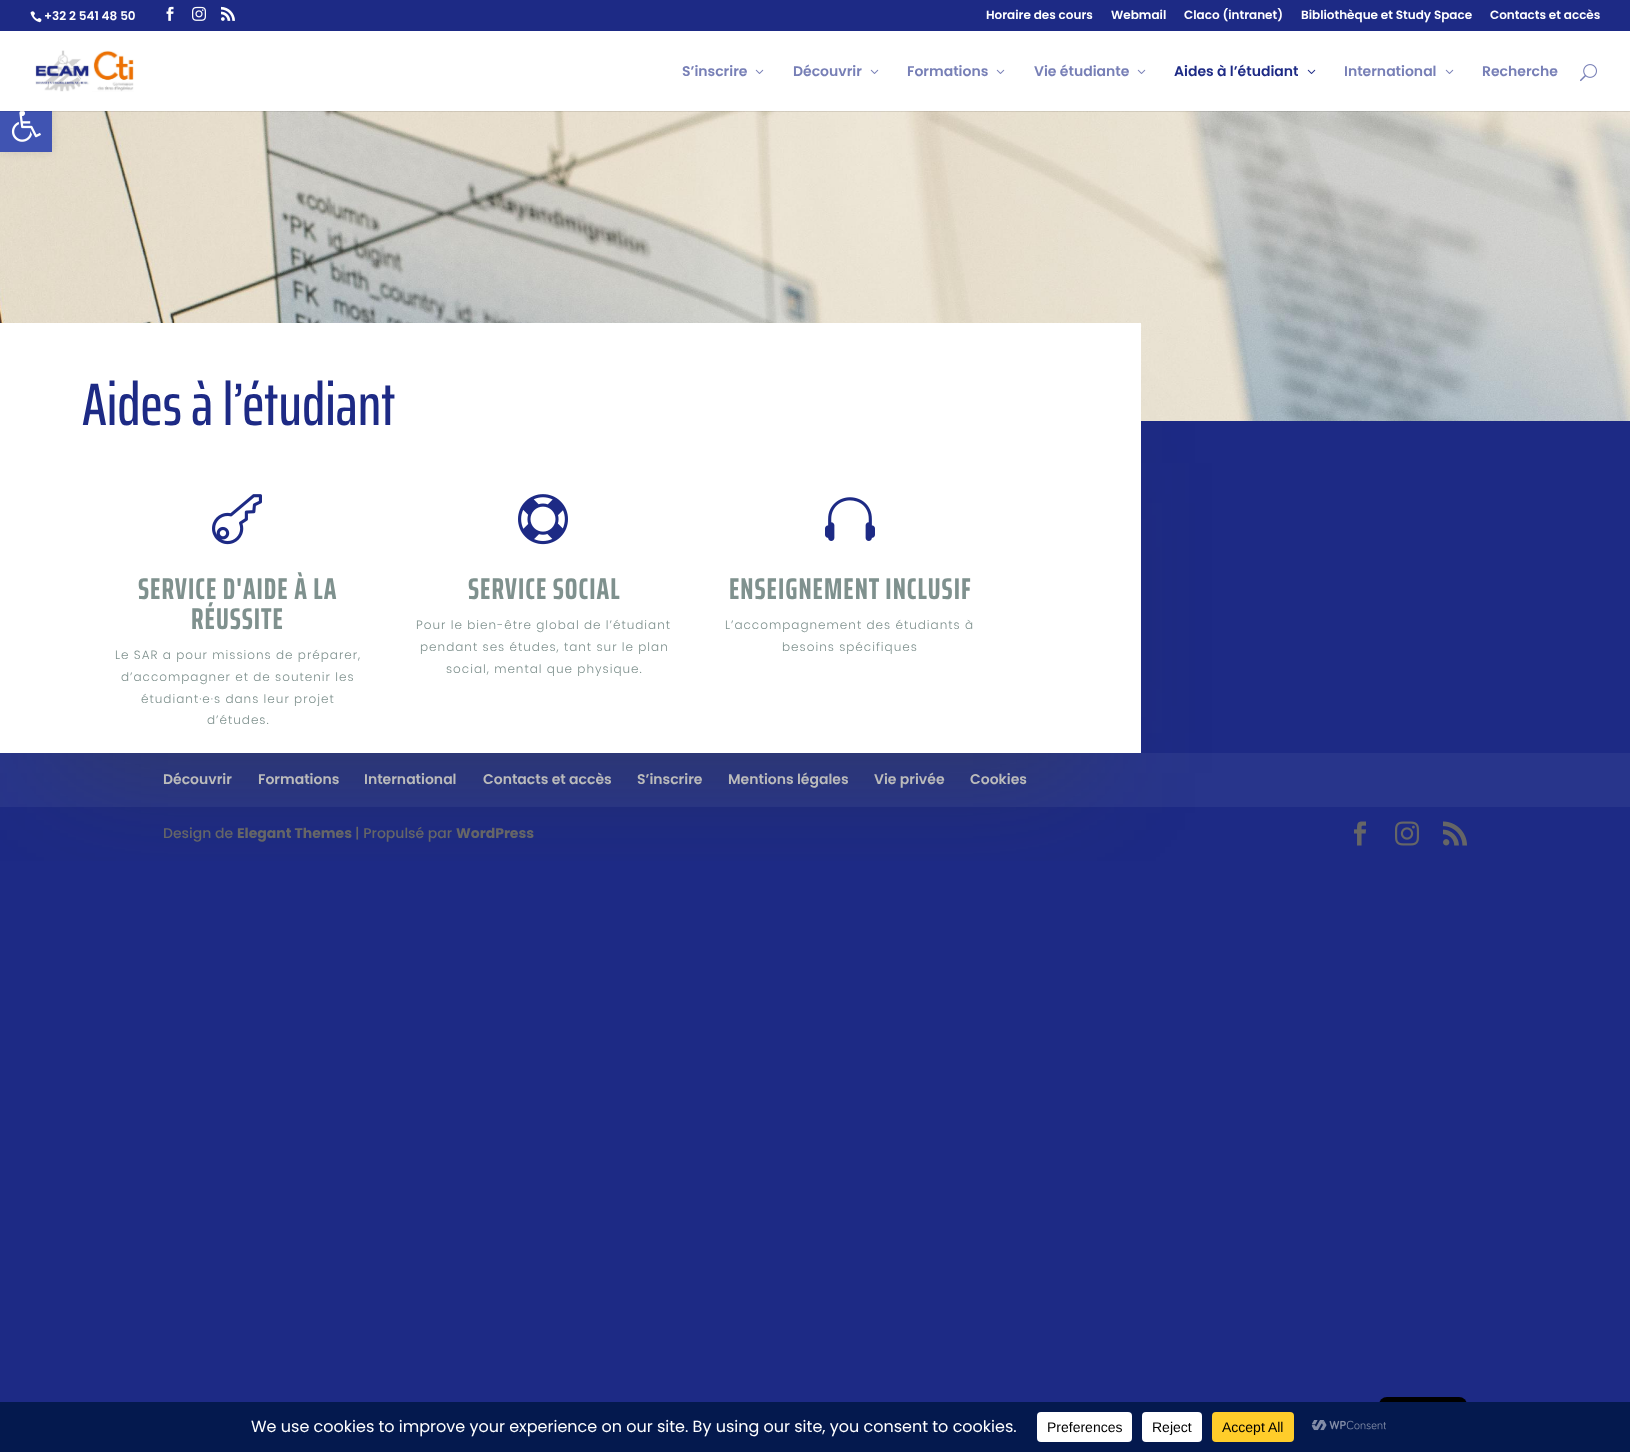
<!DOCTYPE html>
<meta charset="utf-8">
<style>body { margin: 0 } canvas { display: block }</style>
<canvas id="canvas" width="1630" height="1452"></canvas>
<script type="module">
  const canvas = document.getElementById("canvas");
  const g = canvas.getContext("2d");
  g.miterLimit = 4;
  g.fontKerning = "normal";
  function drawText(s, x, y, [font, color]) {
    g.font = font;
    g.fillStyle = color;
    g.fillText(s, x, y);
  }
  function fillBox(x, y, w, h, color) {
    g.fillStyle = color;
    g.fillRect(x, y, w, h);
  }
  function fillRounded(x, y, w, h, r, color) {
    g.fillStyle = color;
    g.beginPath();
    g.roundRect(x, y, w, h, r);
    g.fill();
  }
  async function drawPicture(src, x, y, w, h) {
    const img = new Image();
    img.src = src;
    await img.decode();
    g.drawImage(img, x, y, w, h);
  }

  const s1 = ["600 12px Poppins", "#FFFFFF"];
  const s2 = ["600 14px Poppins", "#777FB6"];
  const s3 = ["600 14px Poppins", "#1D2A85"];
  const s4 = ["500 60px Saira ExtraCondensed", "#1D2A85"];
  const s5 = ["bold 30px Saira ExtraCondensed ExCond", "#7F918E"];
  const s6 = ["300 12px Poppins", "#7F918E"];
  const s7 = ["600 14px Poppins", "#BBBBBB"];
  const s8 = ["500 14px Poppins", "#666666"];
  const s9 = ["bold 14px Poppins", "#666666"];
  const s10 = ["16px Poppins", "#FFFFFF"];
  const s11 = ["14px Liberation Sans", "#000000"];

  fillBox(0, 0, 1630, 1452, "#1D2A85");
  await drawPicture("pic10.png", 0, 111, 1630, 310);
  g.fillStyle = "rgba(0, 0, 0, 0.1)";
  g.filter = "blur(5px)";
  g.beginPath();
  g.rect(0, 100, 52, 52);
  g.fill();
  g.filter = "none";
  fillBox(0, 111, 52, 41, "#4054B2");
  await drawPicture("pic1.png", 11, 111, 30, 31);
  await drawPicture("pic2.png", 30, 11, 12, 12);
  drawText("+32 2 541 48 50", 44, 20, s1);
  await drawPicture("pic3.png", 166, 6, 8, 15);
  await drawPicture("pic4.png", 192, 6, 14, 15);
  await drawPicture("pic5.png", 221, 6, 14, 15);
  drawText("Horaire des cours", 986, 19, s1);
  drawText("Webmail", 1111, 19, s1);
  drawText("Claco (intranet)", 1184, 19, s1);
  drawText("Bibliothèque et Study Space", 1301, 19, s1);
  drawText("Contacts et accès", 1490, 19, s1);
  fillBox(0, 111, 1630, 1, "rgba(0, 0, 0, 0.1)");
  fillBox(0, 31, 1630, 80, "#FFFFFF");
  await drawPicture("pic6.png", 35, 50, 99, 42);
  drawText("S’inscrire", 682, 76, s2);
  await drawPicture("pic7.png", 755, 69, 9, 5);
  drawText("Découvrir", 793, 76, s2);
  await drawPicture("pic7.png", 870, 69, 9, 5);
  drawText("Formations", 907, 76, s2);
  await drawPicture("pic7.png", 996, 69, 9, 5);
  drawText("Vie étudiante", 1034, 76, s2);
  await drawPicture("pic7.png", 1137, 69, 9, 5);
  drawText("Aides à l’étudiant", 1174, 76, s3);
  await drawPicture("pic8.png", 1307, 69, 9, 5);
  drawText("International", 1344, 76, s2);
  await drawPicture("pic7.png", 1445, 69, 9, 5);
  drawText("Recherche", 1482, 76, s2);
  await drawPicture("pic9.png", 1580, 64, 17, 18);
  fillBox(0, 753, 1630, 54, "#28358B");
  g.save();
  g.beginPath();
  g.rect(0, 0, 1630, 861);
  g.clip();
  g.fillStyle = "rgba(63, 63, 31, 0.3)";
  g.filter = "blur(60px)";
  g.beginPath();
  g.rect(60, 463, 1021, 310);
  g.fill();
  g.filter = "none";
  g.restore();
  fillBox(0, 323, 1141, 430, "#FFFFFF");
  drawText("Aides à l’étudiant", 82, 425, s4);
  await drawPicture("pic11.png", 212, 494, 50, 51);
  g.letterSpacing = "1px";
  drawText("SERVICE D'AIDE À LA", 138, 599, s5);
  drawText("RÉUSSITE", 191, 629, s5);
  drawText("Le SAR a pour missions de préparer,", 115, 659, s6);
  drawText("d’accompagner et de soutenir les", 121, 681, s6);
  drawText("étudiant·e·s dans leur projet", 141, 703, s6);
  drawText("d’études.", 207, 724, s6);
  await drawPicture("pic12.png", 518, 494, 50, 51);
  drawText("SERVICE SOCIAL", 468, 599, s5);
  drawText("Pour le bien-être global de l’étudiant", 416, 629, s6);
  drawText("pendant ses études, tant sur le plan", 420, 651, s6);
  drawText("social, mental que physique.", 446, 673, s6);
  await drawPicture("pic13.png", 825, 497, 50, 44);
  drawText("ENSEIGNEMENT INCLUSIF", 729, 599, s5);
  drawText("L’accompagnement des étudiants à", 725, 629, s6);
  drawText("besoins spécifiques", 782, 651, s6);
  g.letterSpacing = "0px";
  drawText("Découvrir", 163, 784, s7);
  drawText("Formations", 258, 784, s7);
  drawText("International", 364, 784, s7);
  drawText("Contacts et accès", 483, 784, s7);
  drawText("S’inscrire", 637, 784, s7);
  drawText("Mentions légales", 728, 784, s7);
  drawText("Vie privée", 874, 784, s7);
  drawText("Cookies", 970, 784, s7);
  drawText("Design de", 163, 838, s8);
  drawText("Elegant Themes", 237, 838, s9);
  drawText("| Propulsé par", 355, 838, s8);
  drawText("WordPress", 456, 838, s9);
  await drawPicture("pic14.png", 1354, 821, 12, 25);
  await drawPicture("pic15.png", 1395, 821, 24, 25);
  await drawPicture("pic16.png", 1443, 821, 24, 25);
  g.fillStyle = "#000000";
  g.beginPath();
  g.roundRect(1379, 1397, 88, 55, [8, 8, 0, 0]);
  g.fill();
  fillBox(0, 1402, 1630, 50, "#04194E");
  drawText("We use cookies to improve your experience on our site. By using our site, you consent to cookies.", 251, 1432, s10);
  fillRounded(1037, 1412, 95, 30, 4, "#FFFFFF");
  drawText("Preferences", 1047, 1432, s11);
  fillRounded(1142, 1412, 60, 30, 4, "#FFFFFF");
  drawText("Reject", 1152, 1432, s11);
  fillRounded(1212, 1412, 82, 30, 4, "#FFCD2A");
  drawText("Accept All", 1222, 1432, s11);
  await drawPicture("pic17.png", 1311, 1420, 75, 11);
</script>
